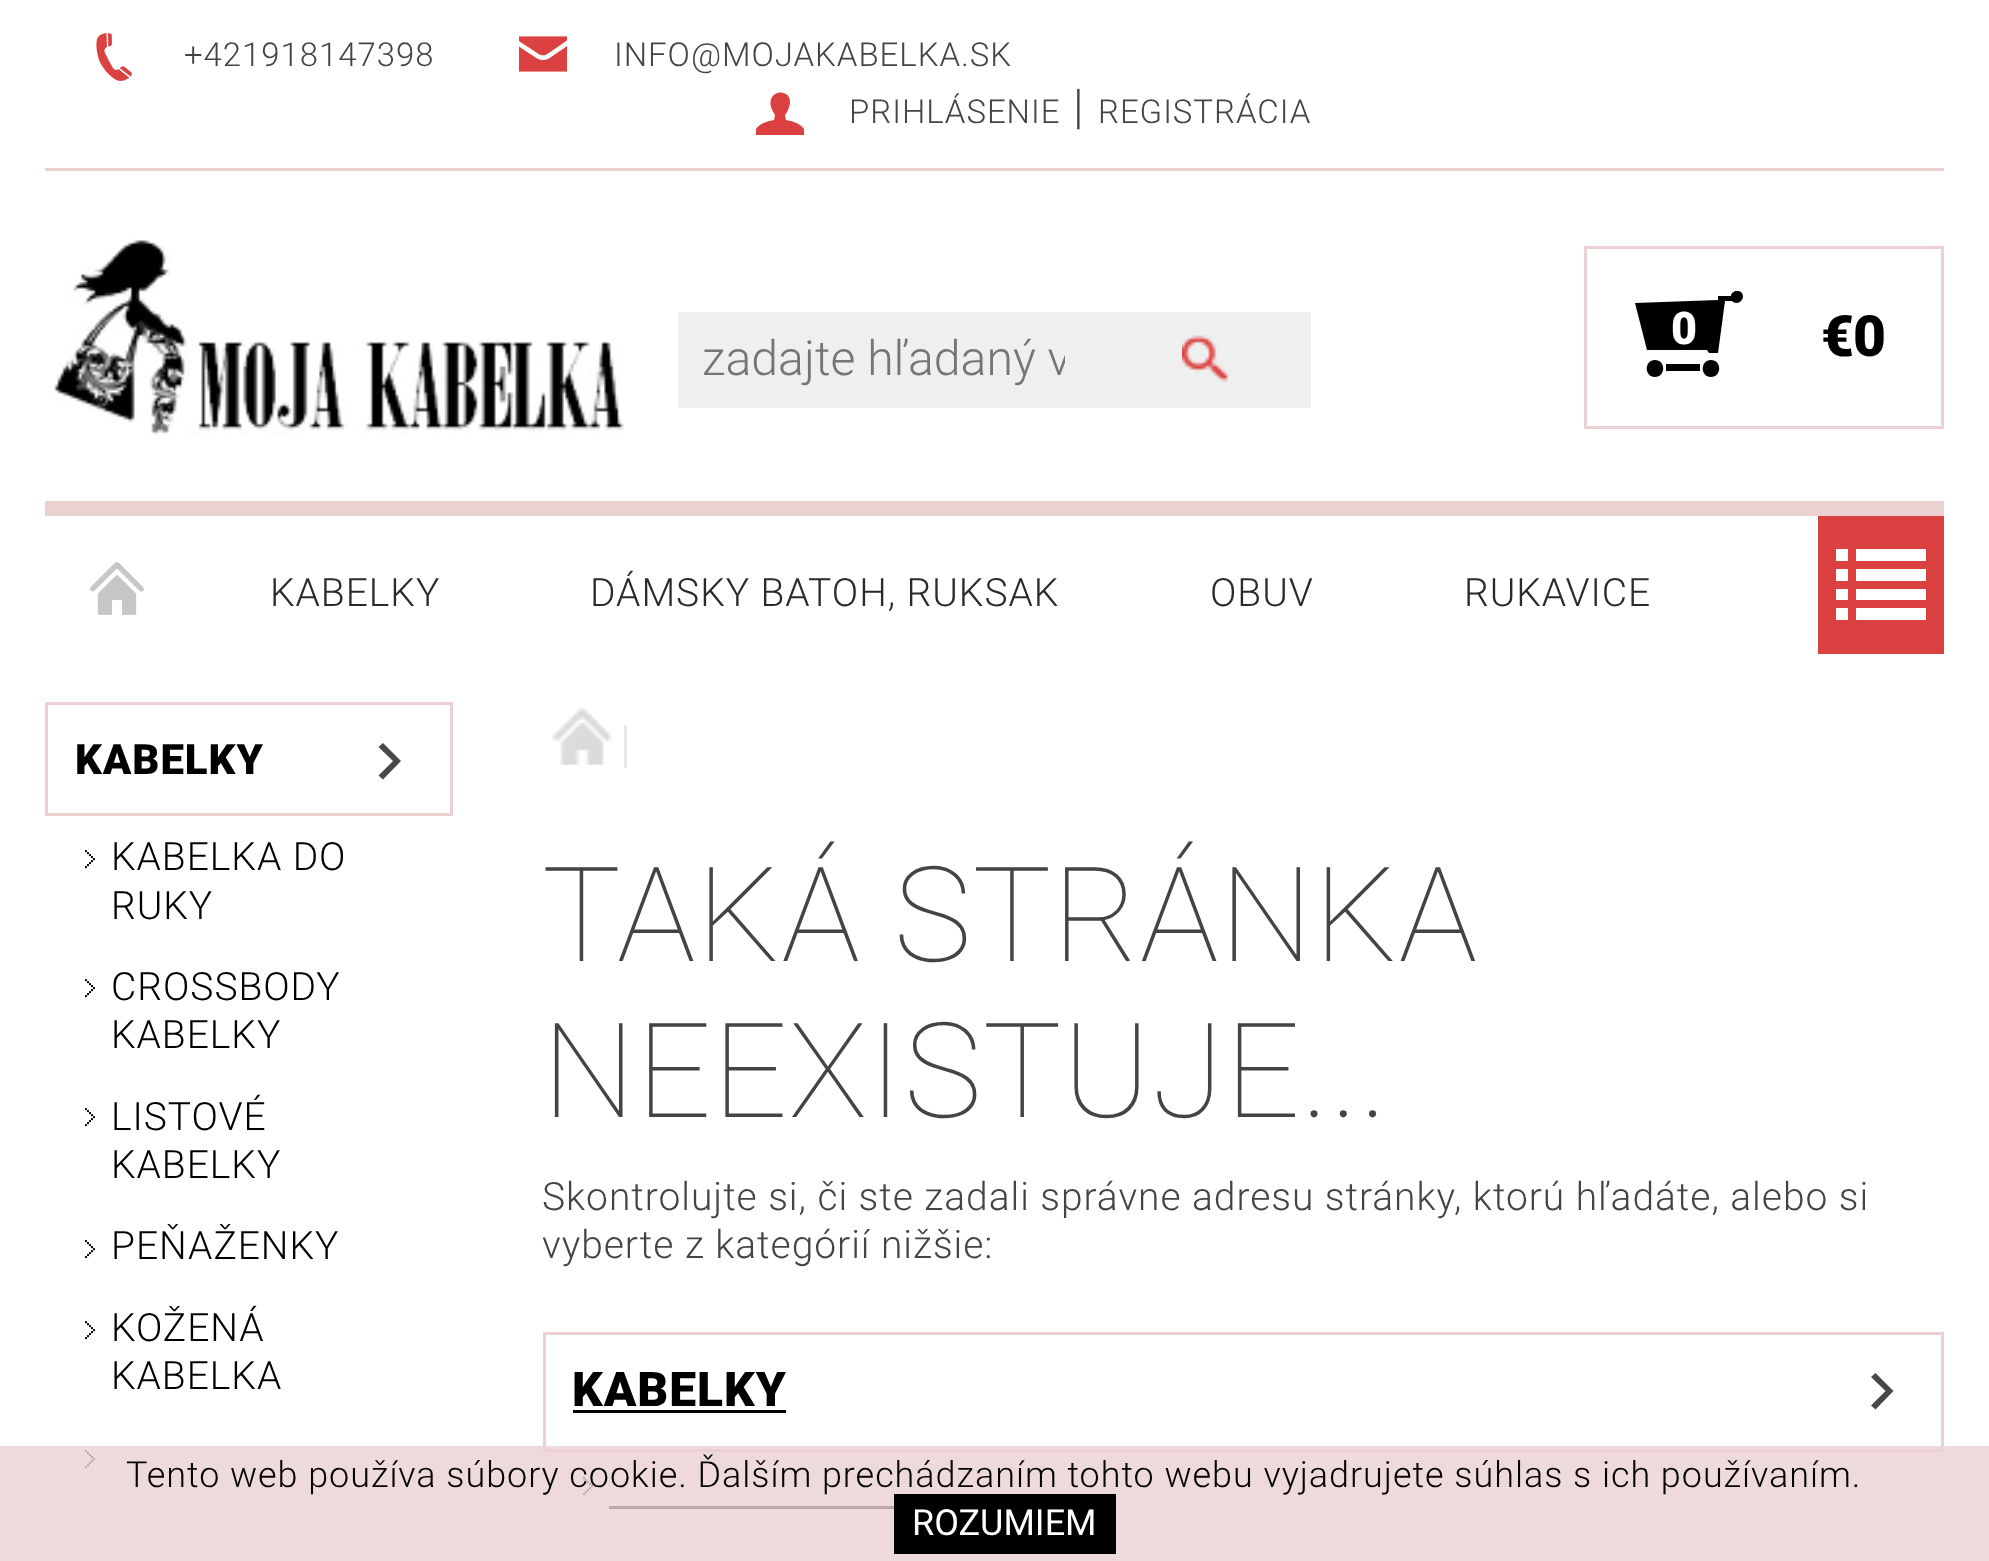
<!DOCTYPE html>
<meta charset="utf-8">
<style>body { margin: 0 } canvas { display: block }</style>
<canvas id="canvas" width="1989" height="1561"></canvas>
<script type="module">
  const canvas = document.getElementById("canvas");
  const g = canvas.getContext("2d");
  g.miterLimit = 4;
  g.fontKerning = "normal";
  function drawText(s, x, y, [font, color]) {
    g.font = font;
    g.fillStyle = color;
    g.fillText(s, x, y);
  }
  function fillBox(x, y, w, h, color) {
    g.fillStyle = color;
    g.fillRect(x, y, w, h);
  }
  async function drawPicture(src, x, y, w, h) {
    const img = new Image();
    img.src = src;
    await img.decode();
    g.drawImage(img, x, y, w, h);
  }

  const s1 = ["300 33px Roboto", "#444444"];
  const s2 = ["300 48px Roboto", "#444444"];
  const s3 = ["300 48.25px Roboto", "#757575"];
  const s4 = ["900 45px Roboto", "#FFFFFF"];
  const s5 = ["900 57px Roboto", "#000000"];
  const s6 = ["300 39px Roboto", "#2A2A2A"];
  const s7 = ["900 42px Roboto", "#000000"];
  const s8 = ["300 39px Roboto", "#000000"];
  const s9 = ["100 132px Roboto", "#444444"];
  const s10 = ["300 39px Roboto", "#444444"];
  const s11 = ["900 48px Roboto", "#000000"];
  const s12 = ["300 36px Roboto", "#000000"];
  const s13 = ["36px Roboto", "#FFFFFF"];

  fillBox(0, 0, 1989, 1561, "#FFFFFF");
  fillBox(45, 168, 1899, 3, "#EBD1D2");
  await drawPicture("pic1.png", 96, 33, 36, 48);
  g.letterSpacing = "0.95px";
  drawText("+421918147398", 184, 66, s1);
  await drawPicture("pic2.png", 519, 36, 48, 36);
  drawText("INFO@MOJAKABELKA.SK", 614, 66, s1);
  g.fillStyle = "#DB4141";
  g.beginPath();
  g.moveTo(786, 120);
  g.lineTo(785, 115);
  g.bezierCurveTo(788, 112, 789, 107, 790, 103);
  g.bezierCurveTo(791, 85, 759, 91, 775, 115);
  g.lineTo(774, 120);
  g.bezierCurveTo(768, 121, 760, 123, 756, 129);
  g.lineTo(756, 135);
  g.lineTo(804, 135);
  g.lineTo(804, 129);
  g.bezierCurveTo(800, 123, 792, 121, 786, 120);
  g.closePath();
  g.fill();
  drawText("PRIHLÁSENIE", 849, 123, s1);
  drawText("|", 1073, 123, s2);
  drawText("REGISTRÁCIA", 1098, 123, s1);
  await drawPicture("pic3.png", 54, 239, 570, 196);
  fillBox(678, 312, 633, 96, "#EFEFEF");
  g.save();
  g.beginPath();
  g.rect(702, 330, 363, 57);
  g.clip();
  g.letterSpacing = "0px";
  drawText("zadajte hľadaný v", 702, 375, s3);
  g.restore();
  fillBox(1182, 335, 47, 47, "#DB4141");
  await drawPicture("pic4.png", 1182, 333, 48, 51);
  g.strokeStyle = "#EBD1D2";
  g.lineWidth = 3;
  g.strokeRect(1585.5, 247.5, 357, 180);
  g.fillStyle = "#000000";
  g.beginPath();
  g.moveTo(1666, 371);
  g.lineTo(1700, 371);
  g.lineTo(1700, 364);
  g.lineTo(1666, 364);
  g.closePath();
  g.moveTo(1655, 360);
  g.bezierCurveTo(1644, 360, 1644, 377, 1655, 377);
  g.bezierCurveTo(1666, 377, 1666, 360, 1655, 360);
  g.closePath();
  g.moveTo(1711, 360);
  g.bezierCurveTo(1700, 360, 1700, 377, 1711, 377);
  g.bezierCurveTo(1722, 377, 1722, 360, 1711, 360);
  g.closePath();
  g.moveTo(1737, 291);
  g.bezierCurveTo(1734, 291, 1731, 293, 1731, 296);
  g.lineTo(1718, 296);
  g.lineTo(1718, 300);
  g.lineTo(1635, 303);
  g.lineTo(1647, 350);
  g.lineTo(1707, 350);
  g.lineTo(1709, 353);
  g.lineTo(1718, 353);
  g.lineTo(1725, 301);
  g.lineTo(1732, 301);
  g.bezierCurveTo(1738, 307, 1747, 298, 1741, 292);
  g.bezierCurveTo(1740, 291, 1738, 291, 1737, 291);
  g.closePath();
  g.fill();
  g.letterSpacing = "-1px";
  drawText("0", 1671, 344, s4);
  drawText("€0", 1821, 356, s5);
  fillBox(45, 501, 1899, 15, "#EBD1D2");
  await drawPicture("pic5.png", 90, 562, 54, 53);
  g.letterSpacing = "0.95px";
  drawText("KABELKY", 270, 606, s6);
  drawText("DÁMSKY BATOH, RUKSAK", 590, 606, s6);
  drawText("OBUV", 1210, 606, s6);
  drawText("RUKAVICE", 1464, 606, s6);
  fillBox(1818, 516, 126, 138, "#DB4141");
  g.fillStyle = "#FFFFFF";
  g.beginPath();
  g.moveTo(1836, 549);
  g.lineTo(1848, 549);
  g.lineTo(1848, 561);
  g.lineTo(1836, 561);
  g.closePath();
  g.moveTo(1856, 549);
  g.lineTo(1926, 549);
  g.lineTo(1926, 561);
  g.lineTo(1856, 561);
  g.closePath();
  g.moveTo(1836, 569);
  g.lineTo(1848, 569);
  g.lineTo(1848, 581);
  g.lineTo(1836, 581);
  g.closePath();
  g.moveTo(1856, 569);
  g.lineTo(1926, 569);
  g.lineTo(1926, 581);
  g.lineTo(1856, 581);
  g.closePath();
  g.moveTo(1836, 589);
  g.lineTo(1848, 589);
  g.lineTo(1848, 600);
  g.lineTo(1836, 600);
  g.closePath();
  g.moveTo(1856, 589);
  g.lineTo(1926, 589);
  g.lineTo(1926, 600);
  g.lineTo(1856, 600);
  g.closePath();
  g.moveTo(1836, 608);
  g.lineTo(1848, 608);
  g.lineTo(1848, 620);
  g.lineTo(1836, 620);
  g.closePath();
  g.moveTo(1856, 608);
  g.lineTo(1926, 608);
  g.lineTo(1926, 620);
  g.lineTo(1856, 620);
  g.closePath();
  g.fill();
  g.strokeRect(46.5, 703.5, 405, 111);
  drawText("KABELKY", 75, 774, s7);
  g.fillStyle = "#484848";
  g.beginPath();
  g.moveTo(383, 779.5);
  g.lineTo(401, 761);
  g.lineTo(383, 743);
  g.lineTo(378.5, 747);
  g.lineTo(393, 761);
  g.lineTo(378.5, 775.5);
  g.closePath();
  g.fill();
  await drawPicture("pic6.png", 85, 850, 10, 19);
  drawText("KABELKA DO", 111, 870, s8);
  drawText("RUKY", 111, 919, s8);
  await drawPicture("pic6.png", 85, 979, 10, 19);
  drawText("CROSSBODY", 111, 1000, s8);
  drawText("KABELKY", 111, 1048, s8);
  await drawPicture("pic6.png", 85, 1108, 10, 19);
  drawText("LISTOVÉ", 111, 1130, s8);
  drawText("KABELKY", 111, 1178, s8);
  await drawPicture("pic6.png", 85, 1240, 10, 19);
  drawText("PEŇAŽENKY", 111, 1259, s8);
  await drawPicture("pic6.png", 85, 1321, 10, 19);
  drawText("KOŽENÁ", 111, 1341, s8);
  drawText("KABELKA", 111, 1389, s8);
  await drawPicture("pic6.png", 85, 1450, 10, 19);
  await drawPicture("pic7.png", 552, 708, 60, 57);
  fillBox(624, 726, 3, 42, "#E7E7E7");
  drawText("TAKÁ STRÁNKA", 542, 961, s9);
  drawText("NEEXISTUJE...", 542, 1117, s9);
  drawText("Skontrolujte si, či ste zadali správne adresu stránky, ktorú hľadáte, alebo si", 542, 1210, s10);
  drawText("vyberte z kategórií nižšie:", 542, 1258, s10);
  g.strokeRect(544.5, 1333.5, 1398, 117);
  drawText("KABELKY", 572, 1406, s11);
  fillBox(573, 1410, 213, 3, "#000000");
  g.fillStyle = "#484848";
  g.beginPath();
  g.moveTo(1875.5, 1409.5);
  g.lineTo(1893.5, 1391);
  g.lineTo(1875.5, 1373);
  g.lineTo(1871, 1377);
  g.lineTo(1885.5, 1391);
  g.lineTo(1871, 1405.5);
  g.closePath();
  g.fill();
  await drawPicture("pic6.png", 583, 1477, 10, 19);
  fillBox(609, 1506, 285, 3, "#000000");
  fillBox(0, 1446, 1989, 115, "rgba(235, 209, 210, 0.8)");
  drawText("Tento web používa súbory cookie. Ďalším prechádzaním tohto webu vyjadrujete súhlas s ich používaním.", 126, 1487, s12);
  fillBox(894, 1494, 222, 60, "#000000");
  g.letterSpacing = "0px";
  drawText("ROZUMIEM", 912, 1535, s13);
</script>
